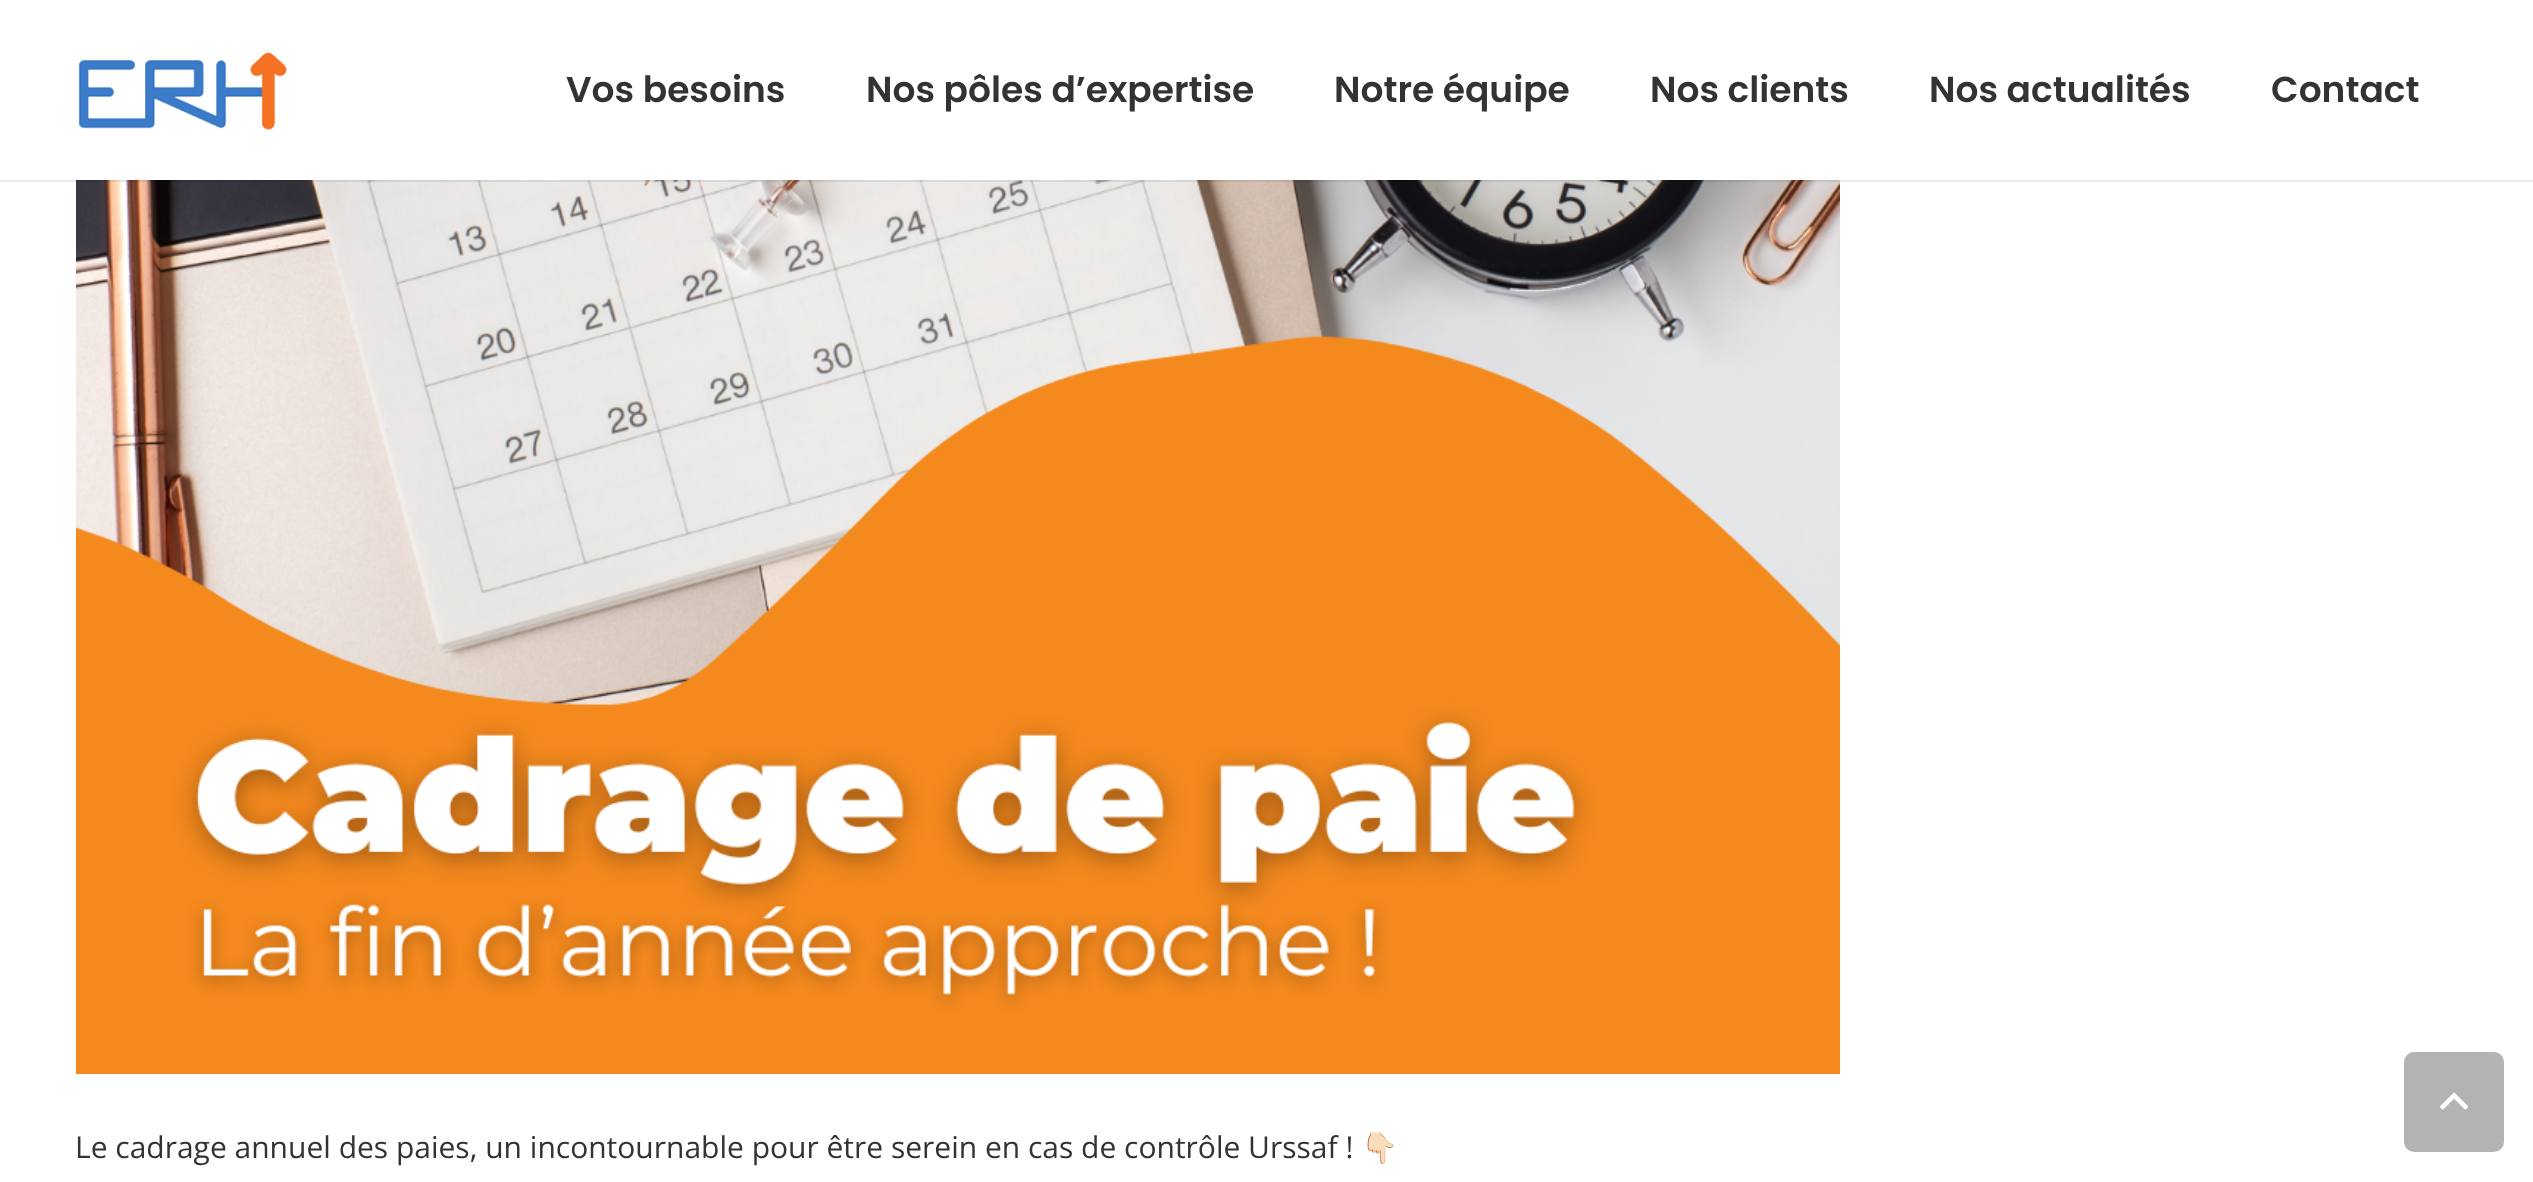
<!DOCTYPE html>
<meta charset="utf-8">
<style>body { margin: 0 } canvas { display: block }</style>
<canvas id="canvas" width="2533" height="1182"></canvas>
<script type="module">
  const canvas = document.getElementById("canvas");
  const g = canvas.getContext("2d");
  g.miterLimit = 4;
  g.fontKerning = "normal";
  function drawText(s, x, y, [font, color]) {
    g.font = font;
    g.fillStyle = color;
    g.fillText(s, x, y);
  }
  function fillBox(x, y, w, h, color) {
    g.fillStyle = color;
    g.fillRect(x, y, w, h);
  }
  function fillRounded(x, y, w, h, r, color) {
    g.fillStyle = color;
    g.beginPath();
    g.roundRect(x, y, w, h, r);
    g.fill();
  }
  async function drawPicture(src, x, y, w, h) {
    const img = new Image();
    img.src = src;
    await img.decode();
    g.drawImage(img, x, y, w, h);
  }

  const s1 = ["600 36px Poppins", "#333333"];
  const s2 = ["30px Open Sans", "#333333"];
  const s3 = ["30px Noto Color Emoji", "#333333"];

  fillBox(0, 0, 2533, 1182, "#FFFFFF");
  await drawPicture("pic2.png", 76, 180, 1764, 894);
  fillBox(0, 180, 2533, 2, "rgba(0, 0, 0, 0.08)");
  await drawPicture("pic1.png", 78, 52, 209, 78);
  drawText("Vos besoins", 566, 102, s1);
  drawText("Nos pôles d’expertise", 866, 102, s1);
  drawText("Notre équipe", 1334, 102, s1);
  drawText("Nos clients", 1650, 102, s1);
  drawText("Nos actualités", 1929, 102, s1);
  drawText("Contact", 2271, 102, s1);
  drawText("Le cadrage annuel des paies, un incontournable pour être serein en cas de contrôle Urssaf !", 75, 1158, s2);
  drawText("👇🏻", 1361, 1158, s3);
  fillRounded(2404, 1052, 100, 100, 10, "#B3B3B3");
  await drawPicture("pic3.png", 2440, 1092, 29, 18);
</script>
